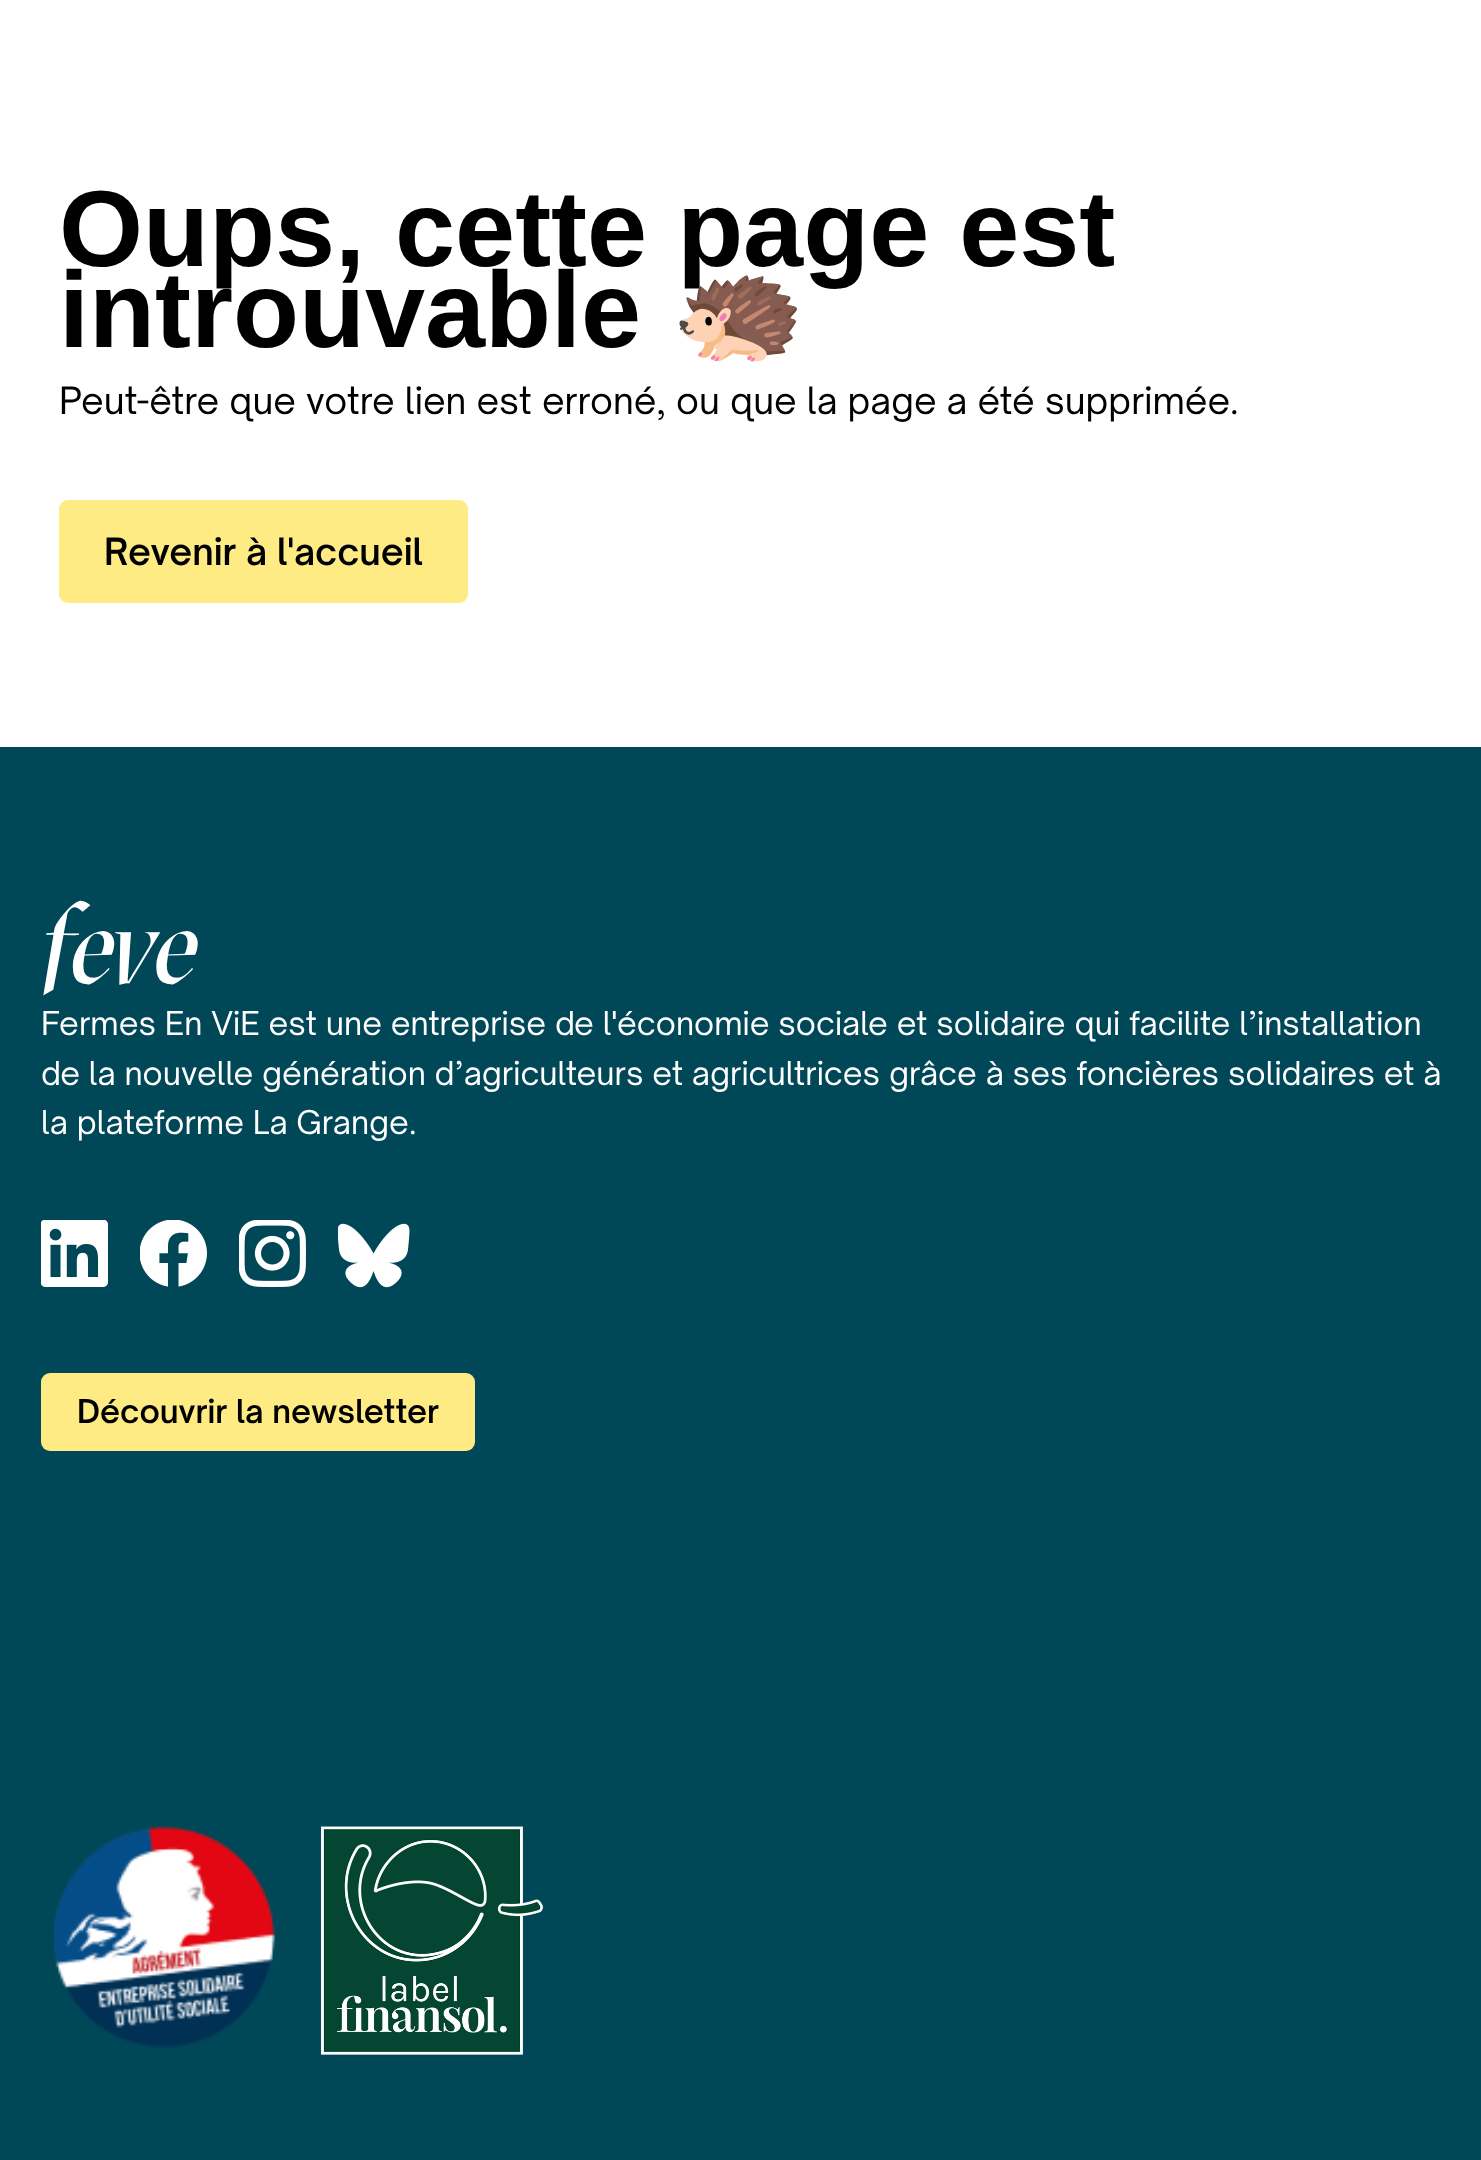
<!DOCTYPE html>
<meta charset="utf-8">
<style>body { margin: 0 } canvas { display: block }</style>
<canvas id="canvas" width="1481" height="2160"></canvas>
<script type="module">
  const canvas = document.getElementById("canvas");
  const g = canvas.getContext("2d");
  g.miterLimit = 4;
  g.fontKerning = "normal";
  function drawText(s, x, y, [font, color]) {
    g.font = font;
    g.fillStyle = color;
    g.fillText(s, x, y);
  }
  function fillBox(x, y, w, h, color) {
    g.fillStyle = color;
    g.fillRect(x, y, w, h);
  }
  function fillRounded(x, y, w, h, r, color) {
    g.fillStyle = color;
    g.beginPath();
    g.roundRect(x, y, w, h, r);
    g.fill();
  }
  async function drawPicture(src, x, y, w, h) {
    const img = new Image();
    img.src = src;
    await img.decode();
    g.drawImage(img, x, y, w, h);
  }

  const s1 = ["bold 108px Liberation Sans", "#000000"];
  const s2 = ["bold 108px Noto Color Emoji", "#000000"];
  const s3 = ["36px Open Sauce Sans", "#000000"];
  const s4 = ["600 36px Open Sauce Sans", "#000000"];
  const s5 = ["italic 108px 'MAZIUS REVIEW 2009'", "#FFFFFF"];
  const s6 = ["31.5px Open Sauce Sans", "#FFFFFF"];
  const s7 = ["600 31.5px Open Sauce Sans", "#000000"];

  fillBox(0, 0, 1481, 2160, "#FFFFFF");
  drawText("Oups, cette page est", 59, 266, s1);
  drawText("introuvable", 59, 347, s1);
  drawText("🦔", 671, 347, s2);
  drawText("Peut-être que votre lien est erroné, ou que la page a été supprimée.", 59, 414, s3);
  fillRounded(59, 500, 409, 103, 9, "#FFEB83");
  drawText("Revenir à l'accueil", 104, 565, s4);
  fillBox(0, 747, 1481, 1413, "#004757");
  drawText("feve", 41, 983, s5);
  drawText("Fermes En ViE est une entreprise de l'économie sociale et solidaire qui facilite l’installation", 41, 1035, s6);
  drawText("de la nouvelle génération d’agriculteurs et agricultrices grâce à ses foncières solidaires et à", 41, 1085, s6);
  drawText("la plateforme La Grange.", 41, 1134, s6);
  await drawPicture("pic1.png", 41, 1220, 67, 67);
  await drawPicture("pic2.png", 140, 1220, 67, 67);
  await drawPicture("pic3.png", 239, 1220, 67, 67);
  await drawPicture("pic4.png", 338, 1223, 72, 65);
  fillRounded(41, 1373, 434, 78, 9, "#FFEB83");
  drawText("Découvrir la newsletter", 77, 1423, s7);
  await drawPicture("pic5.png", 53, 1826, 223, 222);
  await drawPicture("pic6.png", 320, 1826, 223, 229);
</script>
